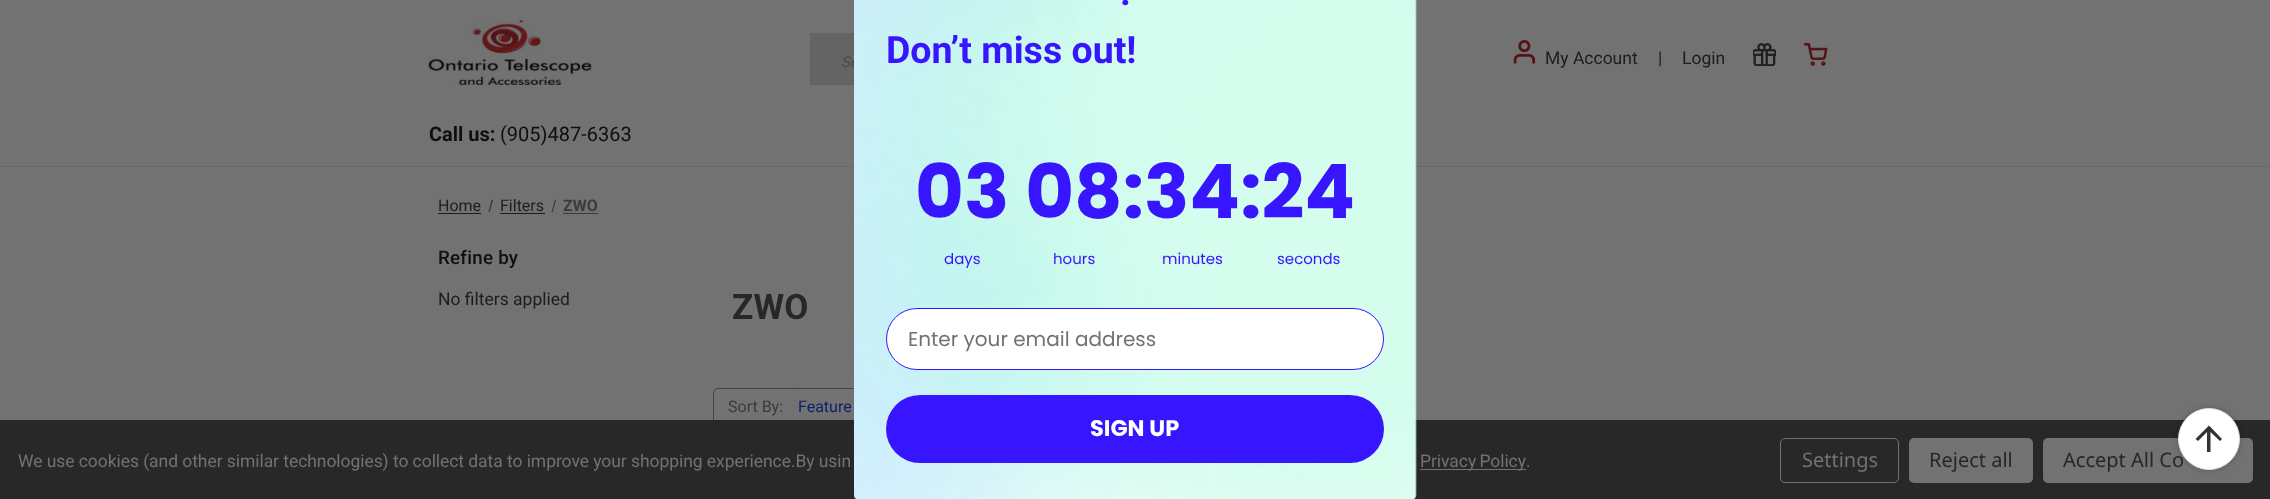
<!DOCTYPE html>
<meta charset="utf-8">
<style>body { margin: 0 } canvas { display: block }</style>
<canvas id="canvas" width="2270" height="499"></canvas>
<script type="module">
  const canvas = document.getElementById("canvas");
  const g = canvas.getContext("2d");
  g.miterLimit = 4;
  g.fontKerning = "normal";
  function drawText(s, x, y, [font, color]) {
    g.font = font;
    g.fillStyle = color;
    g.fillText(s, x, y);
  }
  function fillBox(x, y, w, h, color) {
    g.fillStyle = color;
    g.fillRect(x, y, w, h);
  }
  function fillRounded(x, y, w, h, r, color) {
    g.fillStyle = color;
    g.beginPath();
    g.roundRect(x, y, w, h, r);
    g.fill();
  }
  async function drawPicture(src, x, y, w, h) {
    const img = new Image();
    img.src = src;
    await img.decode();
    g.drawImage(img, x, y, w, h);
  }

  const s1 = ["italic 15px Roboto", "#494949"];
  const s2 = ["bold 37.5px Roboto", "#3716FF"];
  const s3 = ["bold 75px Poppins", "#3716FF"];
  const s4 = ["15px Poppins", "#3716FF"];
  const s5 = ["20px Poppins", "#727272"];
  const s6 = ["bold 22.5px Poppins", "#FFFFFF"];
  const s7 = ["17.5px Roboto", "#1D1D1D"];
  const s8 = ["bold 20px Roboto", "#0F0F0F"];
  const s9 = ["20px Roboto", "#0F0F0F"];
  const s10 = ["16px Roboto", "#1D1D1D"];
  const s11 = ["bold 16px Roboto", "#3B3B3B"];
  const s12 = ["500 18.75px Roboto", "#0F0F0F"];
  const s13 = ["bold 35px Roboto", "#272727"];
  const s14 = ["16px Roboto", "#3B3B3B"];
  const s15 = ["16px Roboto", "#0C1F66"];
  const s16 = ["17.5px Roboto", "#727272"];
  const s17 = ["20px Noto Sans", "#727272"];
  const s18 = ["20px Noto Sans", "#272727"];

  fillBox(0, 0, 2270, 499, "#727272");
  fillBox(0, 166, 2270, 1, "#686868");
  fillBox(810, 33, 44, 51, "#646464");
  drawText("Se", 841, 67, s1);
  g.beginPath();
  g.roundRect(713.5, 388.5, 251, 39, 4.5);
  g.strokeStyle = "#454545";
  g.stroke();
  fillRounded(795, 389, 169, 37, 5, "#727272");
  fillBox(0, 420, 2270, 79, "#282828");
  await drawPicture("pic1.png", 854, 0, 563, 499);
  drawText(".", 1120, 5, s2);
  drawText("Don’t miss out!", 886, 63, s2);
  drawText("03 08:34:24", 915, 218, s3);
  drawText("days", 944, 264, s4);
  drawText("hours", 1053, 264, s4);
  drawText("minutes", 1162, 264, s4);
  drawText("seconds", 1277, 264, s4);
  g.fillStyle = "#FFFFFF";
  g.beginPath();
  g.roundRect(886.5, 308.5, 497, 61, 30.5);
  g.fill();
  g.strokeStyle = "#3716FF";
  g.stroke();
  drawText("Enter your email address", 908, 346, s5);
  fillRounded(886, 395, 498, 68, 34, "#3716FF");
  drawText("SIGN UP", 1090, 436, s6);
  fillBox(810, 84, 44, 1, "#626262");
  await drawPicture("pic2.png", 1513, 40, 23, 24);
  drawText("My Account", 1545, 64, s7);
  drawText("|", 1658, 64, s7);
  drawText("Login", 1682, 64, s7);
  await drawPicture("pic3.png", 1753, 43, 23, 23);
  await drawPicture("pic4.png", 1804, 43, 24, 23);
  await drawPicture("pic5.png", 428, 20, 164, 65);
  drawText("Call us:", 429, 141, s8);
  drawText("(905)487-6363", 500, 141, s9);
  drawText("Home", 438, 211, s10);
  fillBox(438, 213, 43, 1, "#1D1D1D");
  g.fillStyle = "#3B3B3B";
  g.beginPath();
  g.moveTo(491.5, 199.5);
  g.lineTo(493, 200);
  g.lineTo(489.5, 212.5);
  g.lineTo(488.5, 212);
  g.closePath();
  g.fill();
  drawText("Filters", 500, 211, s10);
  fillBox(500, 213, 45, 1, "#1D1D1D");
  g.fillStyle = "#3B3B3B";
  g.beginPath();
  g.moveTo(555, 199.5);
  g.lineTo(556, 200);
  g.lineTo(552.5, 212.5);
  g.lineTo(551.5, 212);
  g.closePath();
  g.fill();
  drawText("ZWO", 563, 211, s11);
  fillBox(563, 213, 35, 1, "#3B3B3B");
  g.letterSpacing = "0.25px";
  drawText("Refine by", 438, 264, s12);
  g.letterSpacing = "0px";
  drawText("No filters applied", 438, 305, s7);
  g.letterSpacing = "0.25px";
  drawText("ZWO", 732, 319, s13);
  g.letterSpacing = "0px";
  drawText("Sort By:", 728, 412, s14);
  drawText("Feature", 798, 412, s15);
  g.letterSpacing = "-0.06px";
  drawText("We use cookies (and other similar technologies) to collect data to improve your shopping experience.By usin", 18, 467, s16);
  fillBox(1420, 469, 106, 1, "#727272");
  g.wordSpacing = "-1px";
  drawText("Privacy Policy", 1420, 467, s16);
  g.wordSpacing = "0px";
  drawText(".", 1526, 467, s16);
  g.beginPath();
  g.roundRect(1780.5, 438.5, 118, 44, 4.5);
  g.strokeStyle = "#727272";
  g.stroke();
  g.letterSpacing = "0px";
  drawText("Settings", 1802, 467, s17);
  fillRounded(1909, 438, 124, 45, 5, "#727272");
  drawText("Reject all", 1929, 467, s18);
  fillRounded(2043, 438, 210, 45, 5, "#727272");
  drawText("Accept All Co", 2063, 467, s18);
  g.fillStyle = "rgba(0, 0, 0, 0.2)";
  g.filter = "blur(3px)";
  g.beginPath();
  g.roundRect(2178, 408, 62, 62, 31);
  g.fill();
  g.filter = "none";
  g.fillStyle = "#FFFFFF";
  g.beginPath();
  g.arc(2209, 439, 30.5, 0, Math.PI * 2);
  g.fill();
  g.strokeStyle = "#E0E0E0";
  g.stroke();
  g.fillStyle = "#333333";
  g.beginPath();
  g.moveTo(2207, 452);
  g.lineTo(2207, 432);
  g.lineTo(2198, 441);
  g.lineTo(2195.5, 439);
  g.lineTo(2209, 425.5);
  g.lineTo(2222, 439);
  g.lineTo(2220, 441);
  g.lineTo(2210.5, 432);
  g.lineTo(2210.5, 452);
  g.closePath();
  g.fill();
</script>
